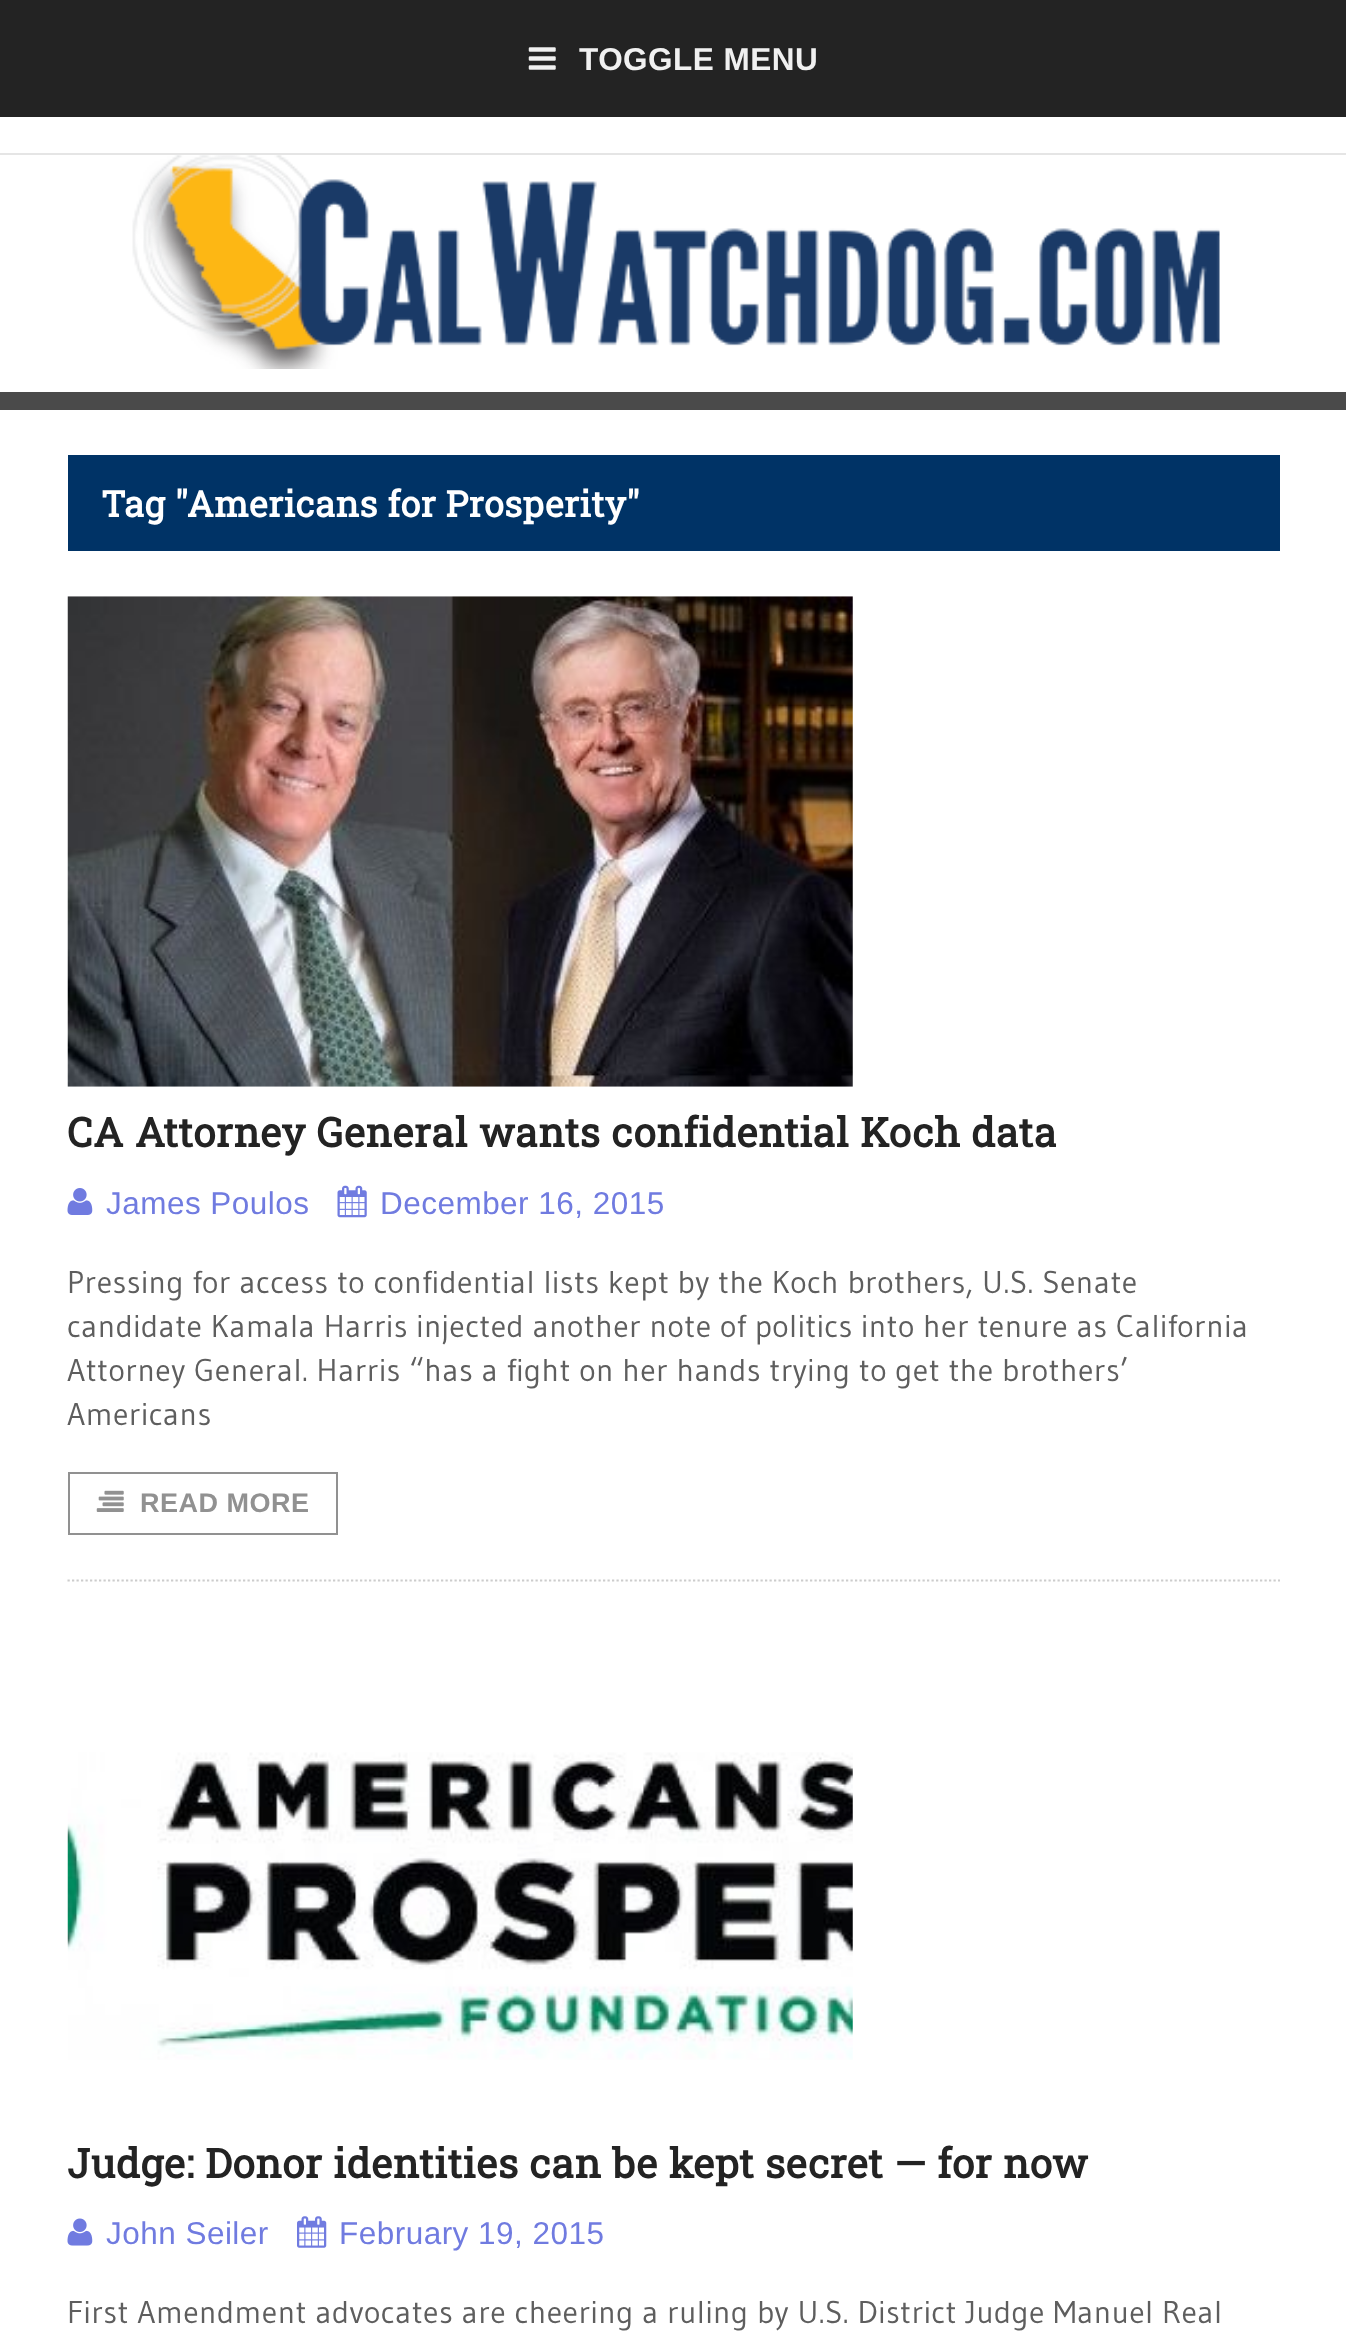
<!DOCTYPE html>
<meta charset="utf-8">
<style>body { margin: 0 } canvas { display: block }</style>
<canvas id="canvas" width="1346" height="2333"></canvas>
<script type="module">
  const canvas = document.getElementById("canvas");
  const g = canvas.getContext("2d");
  g.miterLimit = 4;
  g.fontKerning = "normal";
  function drawText(s, x, y, [font, color]) {
    g.font = font;
    g.fillStyle = color;
    g.fillText(s, x, y);
  }
  function fillBox(x, y, w, h, color) {
    g.fillStyle = color;
    g.fillRect(x, y, w, h);
  }
  async function drawPicture(src, x, y, w, h) {
    const img = new Image();
    img.src = src;
    await img.decode();
    g.drawImage(img, x, y, w, h);
  }

  const s1 = ["bold 31.5px Liberation Sans", "#F0F0F0"];
  const s2 = ["bold 36px Roboto Slab", "#FFFFFF"];
  const s3 = ["bold 40.5px Roboto Slab", "#232323"];
  const s4 = ["31.5px Liberation Sans", "#707BE0"];
  const s5 = ["31.5px Gudea", "#5E5E5E"];
  const s6 = ["bold 27px Liberation Sans", "#919191"];

  fillBox(0, 0, 1346, 2333, "#FFFFFF");
  fillBox(0, 0, 1346, 117, "#232323");
  await drawPicture("pic1.png", 528, 47, 28, 23);
  g.letterSpacing = "0.47px";
  drawText("TOGGLE MENU", 579, 70, s1);
  fillBox(0, 153, 1346, 2, "#E5E5E5");
  await drawPicture("pic2.png", 132, 155, 1088, 214);
  fillBox(0, 392, 1346, 18, "#4A4A4A");
  fillBox(68, 455, 1212, 96, "#003366");
  drawText("Tag \"Americans for Prosperity\"", 101, 517, s2);
  g.beginPath();
  g.moveTo(67.5, 1580.5);
  g.lineTo(1280, 1580.5);
  g.strokeStyle = "#CCCCCC";
  g.lineWidth = 2.2;
  g.setLineDash([2.25, 2.25]);
  g.stroke();
  await drawPicture("pic3.png", 67, 596, 786, 491);
  g.letterSpacing = "0.6px";
  drawText("CA Attorney General wants confidential Koch data", 67, 1147, s3);
  await drawPicture("pic4.png", 67, 1188, 26, 27);
  g.letterSpacing = "0.47px";
  drawText("James Poulos", 106, 1214, s4);
  await drawPicture("pic5.png", 337, 1185, 30, 33);
  drawText("December 16, 2015", 380, 1214, s4);
  drawText("Pressing for access to confidential lists kept by the Koch brothers, U.S. Senate", 67, 1293, s5);
  drawText("candidate Kamala Harris injected another note of politics into her tenure as California", 67, 1337, s5);
  drawText("Attorney General. Harris “has a fight on her hands trying to get the brothers’", 67, 1381, s5);
  drawText("Americans", 67, 1425, s5);
  g.strokeStyle = "#919191";
  g.lineWidth = 2;
  g.setLineDash([]);
  g.strokeRect(69, 1473, 268, 61);
  await drawPicture("pic6.png", 96, 1490, 28, 22);
  g.letterSpacing = "0.5px";
  drawText("READ MORE", 140, 1512, s6);
  await drawPicture("pic7.png", 67, 1752, 786, 308);
  g.letterSpacing = "0.6px";
  drawText("Judge: Donor identities can be kept secret — for now", 67, 2178, s3);
  await drawPicture("pic8.png", 67, 2218, 26, 28);
  g.letterSpacing = "0.47px";
  drawText("John Seiler", 106, 2244, s4);
  await drawPicture("pic9.png", 297, 2216, 30, 32);
  drawText("February 19, 2015", 339, 2244, s4);
  drawText("First Amendment advocates are cheering a ruling by U.S. District Judge Manuel Real", 67, 2323, s5);
</script>
